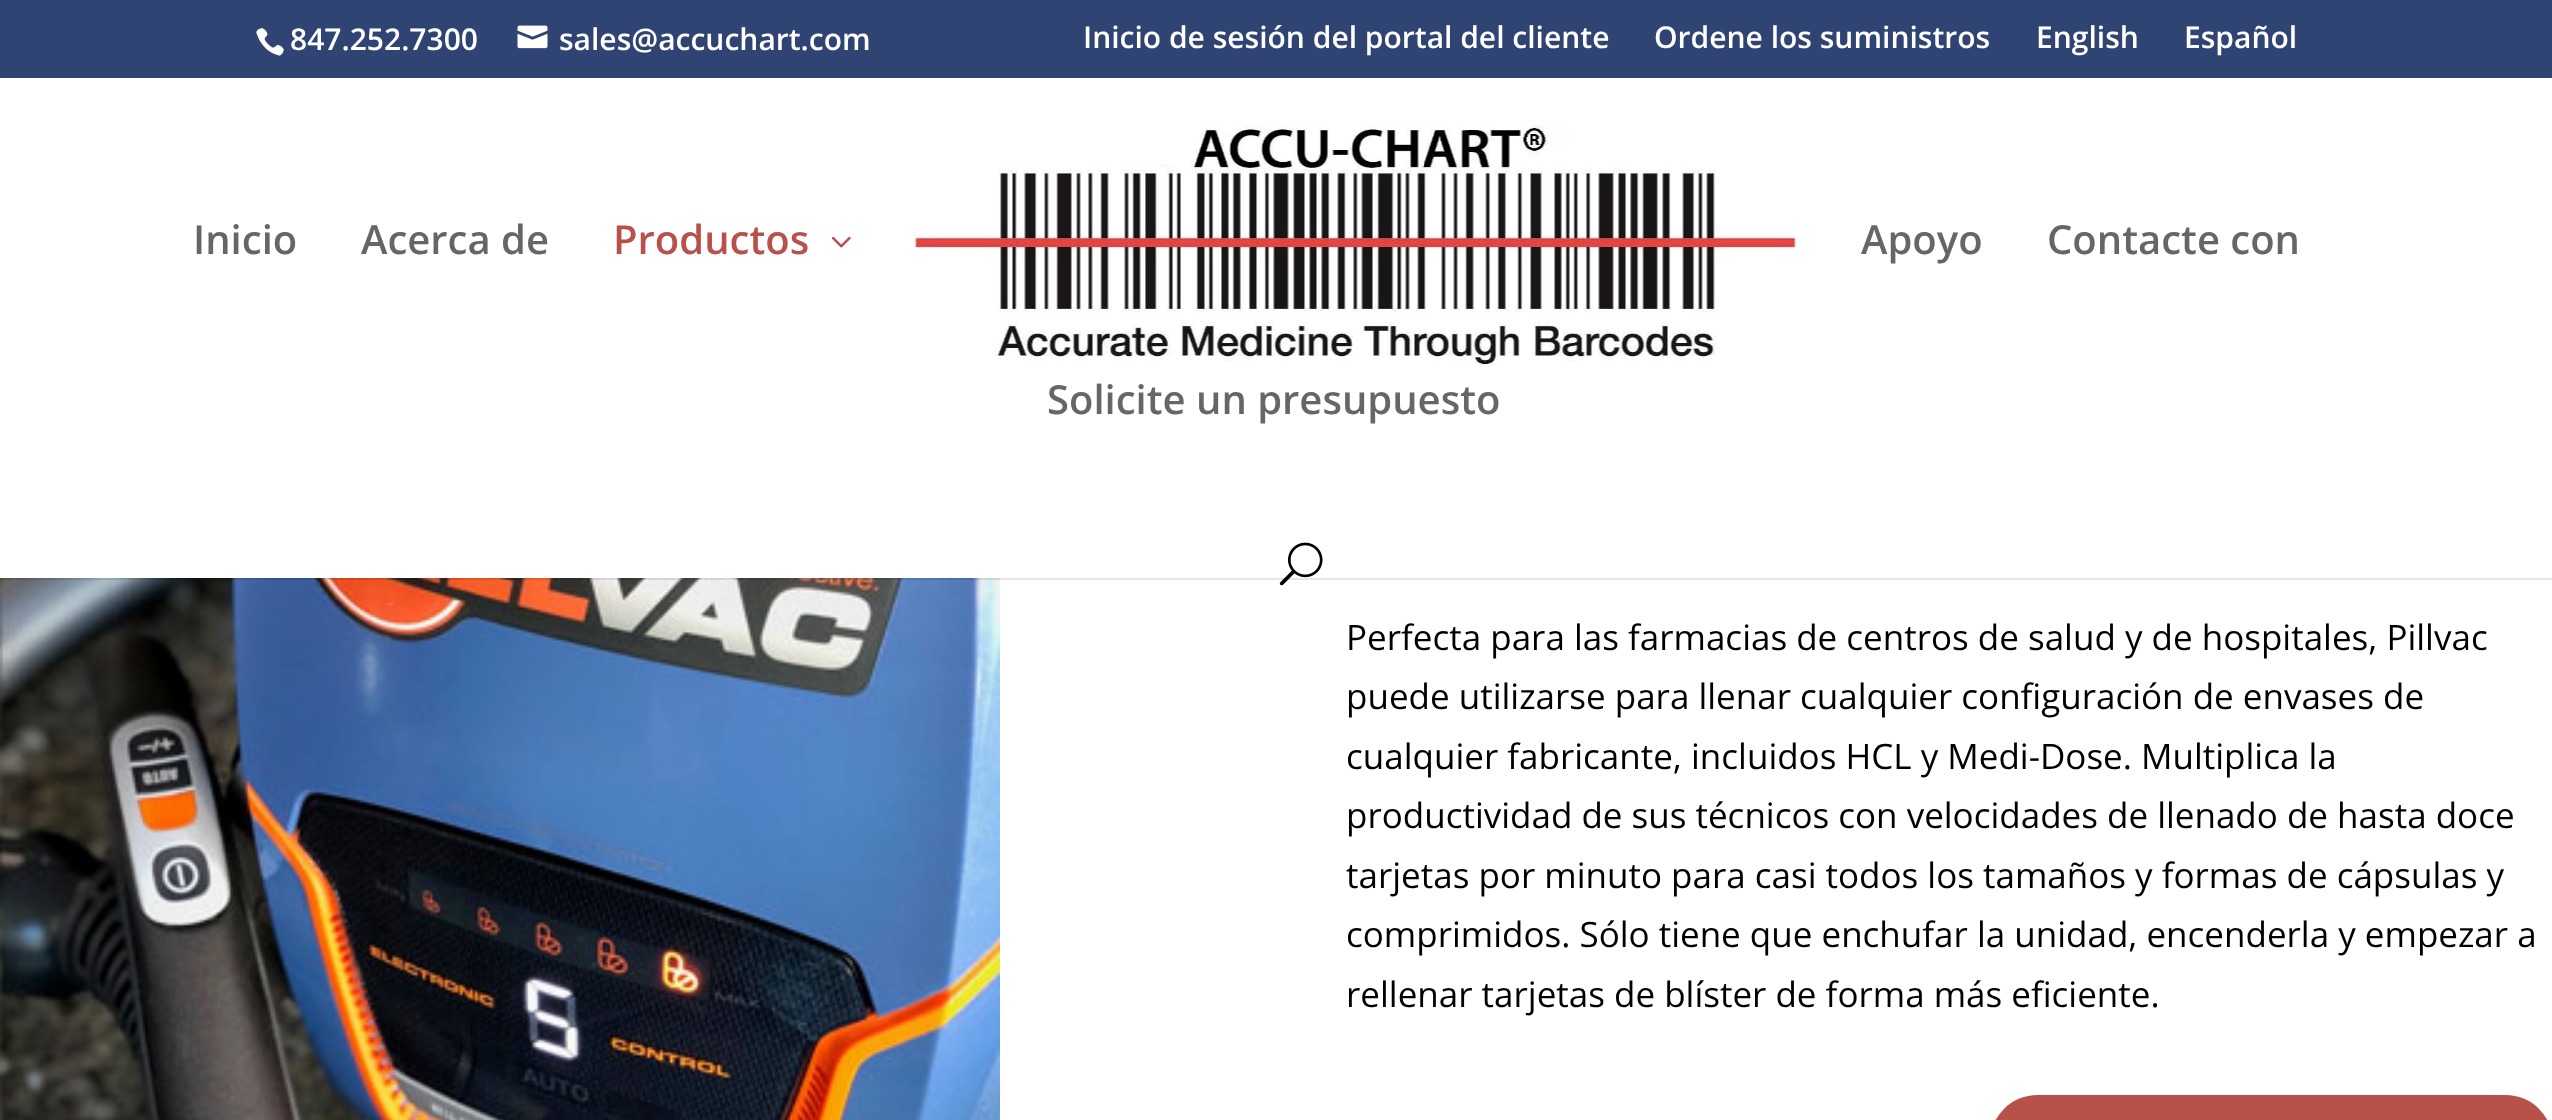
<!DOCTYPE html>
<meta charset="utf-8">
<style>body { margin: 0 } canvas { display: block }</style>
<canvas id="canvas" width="2552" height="1120"></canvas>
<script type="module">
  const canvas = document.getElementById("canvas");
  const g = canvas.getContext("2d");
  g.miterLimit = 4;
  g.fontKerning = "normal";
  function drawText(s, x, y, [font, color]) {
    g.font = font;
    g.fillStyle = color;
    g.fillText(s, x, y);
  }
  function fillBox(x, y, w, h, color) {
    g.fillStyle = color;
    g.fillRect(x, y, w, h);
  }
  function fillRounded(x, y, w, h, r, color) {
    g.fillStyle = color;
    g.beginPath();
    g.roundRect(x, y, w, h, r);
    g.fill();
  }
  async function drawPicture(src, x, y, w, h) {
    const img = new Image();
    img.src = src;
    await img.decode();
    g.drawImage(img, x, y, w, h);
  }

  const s1 = ["600 30px Open Sans", "#FFFFFF"];
  const s2 = ["600 40px Open Sans", "#666666"];
  const s3 = ["600 40px Open Sans", "#B8514A"];
  const s4 = ["35px Open Sans", "#000000"];

  fillBox(0, 0, 2552, 1120, "#FFFFFF");
  fillBox(0, 0, 2552, 78, "#2F4473");
  await drawPicture("pic1.png", 256, 28, 28, 28);
  drawText("847.252.7300", 290, 50, s1);
  await drawPicture("pic2.png", 517, 25, 31, 24);
  drawText("sales@accuchart.com", 559, 50, s1);
  drawText("Inicio de sesión del portal del cliente", 1083, 48, s1);
  drawText("Ordene los suministros", 1654, 48, s1);
  drawText("English", 2036, 48, s1);
  drawText("Español", 2184, 48, s1);
  await drawPicture("pic6.png", 0, 578, 1000, 542);
  g.fillStyle = "rgba(0, 0, 0, 0.1)";
  g.beginPath();
  g.moveTo(0, 578);
  g.lineTo(0, 580);
  g.lineTo(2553, 580);
  g.lineTo(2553, 80);
  g.lineTo(2552, 80);
  g.lineTo(2552, 578);
  g.closePath();
  g.fill();
  drawText("Inicio", 193, 254, s2);
  drawText("Acerca de", 361, 254, s2);
  drawText("Productos", 613, 254, s3);
  await drawPicture("pic3.png", 831, 236, 20, 12);
  await drawPicture("pic4.png", 914, 125, 884, 241);
  drawText("Apoyo", 1861, 254, s2);
  drawText("Contacte con", 2047, 254, s2);
  drawText("Solicite un presupuesto", 1047, 414, s2);
  await drawPicture("pic5.png", 1279, 542, 44, 44);
  drawText("Perfecta para las farmacias de centros de salud y de hospitales, Pillvac", 1346, 650, s4);
  drawText("puede utilizarse para llenar cualquier configuración de envases de", 1346, 709, s4);
  drawText("cualquier fabricante, incluidos HCL y Medi-Dose. Multiplica la", 1346, 769, s4);
  drawText("productividad de sus técnicos con velocidades de llenado de hasta doce", 1346, 828, s4);
  drawText("tarjetas por minuto para casi todos los tamaños y formas de cápsulas y", 1346, 888, s4);
  drawText("comprimidos. Sólo tiene que enchufar la unidad, encenderla y empezar a", 1346, 947, s4);
  drawText("rellenar tarjetas de blíster de forma más eficiente.", 1346, 1007, s4);
  fillRounded(1990, 1095, 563, 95, 70, "#B8514A");
  g.fillStyle = "#FFFFFF";
  g.beginPath();
  g.moveTo(2466, 708);
  g.lineTo(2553, 708);
  g.lineTo(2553, 808);
  g.lineTo(2466, 808);
  g.bezierCurveTo(2459, 808, 2453, 802, 2453, 795);
  g.lineTo(2453, 721);
  g.bezierCurveTo(2453, 714, 2459, 708, 2466, 708);
  g.closePath();
  g.fill();
</script>
